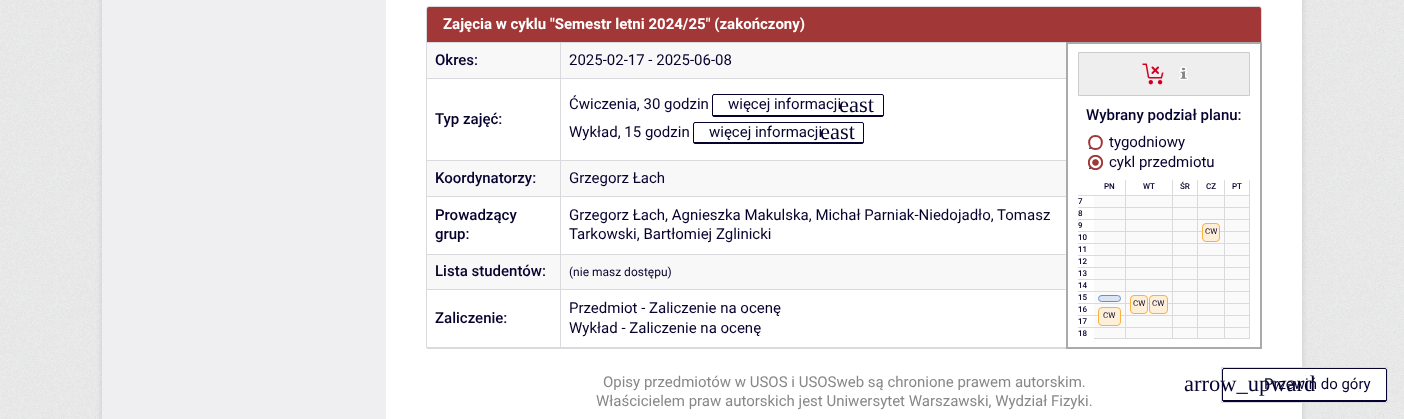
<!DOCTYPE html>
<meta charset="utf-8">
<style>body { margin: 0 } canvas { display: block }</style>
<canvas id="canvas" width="1404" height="419"></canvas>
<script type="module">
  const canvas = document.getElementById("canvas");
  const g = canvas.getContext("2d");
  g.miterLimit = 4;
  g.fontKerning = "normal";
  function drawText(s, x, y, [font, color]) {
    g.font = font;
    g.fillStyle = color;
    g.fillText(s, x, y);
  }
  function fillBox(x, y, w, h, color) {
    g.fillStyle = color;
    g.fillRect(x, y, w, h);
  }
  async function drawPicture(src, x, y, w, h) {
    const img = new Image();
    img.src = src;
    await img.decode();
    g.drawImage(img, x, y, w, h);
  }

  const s1 = ["bold 15px Roboto", "#FFFFFF"];
  const s2 = ["500 15px Roboto", "#06022E"];
  const s3 = ["15px Roboto", "#06022E"];
  const s4 = ["500 8px Roboto", "#06022E"];
  const s5 = ["8px Roboto", "#06022E"];
  const s6 = ["22.5px Liberation Serif", "#06022E"];
  const s7 = ["12px Roboto", "#06022E"];
  const s8 = ["15px Roboto", "#888888"];

  fillBox(0, 0, 1404, 419, "#FFFFFF");
  await drawPicture("pic1.png", 0, 0, 1404, 419);
  g.fillStyle = "rgba(6, 6, 51, 0.12)";
  g.filter = "blur(3px)";
  g.beginPath();
  g.rect(102, -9, 1200, 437);
  g.fill();
  g.filter = "none";
  fillBox(386, 0, 916, 419, "#FFFFFF");
  fillBox(102, 0, 284, 419, "#EFEFF1");
  g.beginPath();
  g.roundRect(426.5, 6.5, 835, 342, [2.5, 2.5, 1.5, 1.5]);
  g.strokeStyle = "#DADADE";
  g.stroke();
  g.fillStyle = "#A23737";
  g.beginPath();
  g.roundRect(427, 7, 834, 36, [2, 2, 0, 0]);
  g.fill();
  drawText("Zajęcia w cyklu \"Semestr letni 2024/25\" (zakończony)", 443, 29, s1);
  fillBox(427, 43, 133, 35, "#F8F8F8");
  fillBox(560, 42, 508, 1, "#DADADE");
  fillBox(560, 78, 508, 1, "#DADADE");
  fillBox(560, 160, 508, 1, "#DADADE");
  fillBox(560, 196, 508, 1, "#DADADE");
  fillBox(560, 254, 508, 1, "#DADADE");
  fillBox(560, 289, 508, 1, "#DADADE");
  fillBox(560, 347, 508, 1, "#DADADE");
  fillBox(560, 289, 1, 59, "#DADADE");
  fillBox(426, 289, 135, 1, "#DADADE");
  fillBox(560, 254, 1, 36, "#DADADE");
  fillBox(426, 254, 135, 1, "#DADADE");
  fillBox(560, 196, 1, 59, "#DADADE");
  fillBox(426, 196, 135, 1, "#DADADE");
  fillBox(560, 160, 1, 37, "#DADADE");
  fillBox(426, 160, 135, 1, "#DADADE");
  fillBox(560, 78, 1, 83, "#DADADE");
  fillBox(426, 78, 135, 1, "#DADADE");
  fillBox(560, 42, 1, 37, "#DADADE");
  fillBox(426, 42, 135, 1, "#DADADE");
  drawText("Okres:", 435, 65, s2);
  fillBox(561, 43, 505, 35, "#F8F8F8");
  drawText("2025-02-17 - 2025-06-08", 569, 65, s3);
  fillBox(1066, 42, 196, 2, "#AAAAAA");
  fillBox(1260, 42, 2, 307, "#AAAAAA");
  fillBox(1066, 347, 196, 2, "#AAAAAA");
  fillBox(1066, 42, 2, 307, "#AAAAAA");
  g.fillStyle = "#EEEEEE";
  g.beginPath();
  g.rect(1078.5, 52.5, 171, 43);
  g.fill();
  g.strokeStyle = "#CCCCCC";
  g.stroke();
  await drawPicture("pic2.png", 1142, 63, 22, 22);
  await drawPicture("pic3.png", 1179, 66, 9, 14);
  drawText("Wybrany podział planu:", 1086, 120, s2);
  g.beginPath();
  g.moveTo(1095.5, 136);
  g.bezierCurveTo(1104, 136, 1104, 149, 1095.5, 149);
  g.bezierCurveTo(1087, 149, 1087, 136, 1095.5, 136);
  g.closePath();
  g.strokeStyle = "#A23737";
  g.lineWidth = 2;
  g.lineCap = "round";
  g.stroke();
  drawText(".", 1088, 149, s3);
  drawText("tygodniowy", 1109, 147, s3);
  await drawPicture("pic4.png", 1088, 155, 15, 15);
  drawText(".", 1088, 169, s3);
  drawText("cykl przedmiotu", 1109, 167, s3);
  fillBox(1125, 180, 1, 159, "#DADADE");
  fillBox(1172, 180, 1, 159, "#DADADE");
  fillBox(1197, 180, 1, 159, "#DADADE");
  fillBox(1224, 180, 1, 159, "#DADADE");
  fillBox(1249, 180, 1, 159, "#DADADE");
  fillBox(1078, 195, 172, 1, "#DADADE");
  drawText("7", 1078, 204, s4);
  fillBox(1094, 196, 31, 142, "#FAFAFA");
  fillBox(1126, 196, 46, 142, "#FAFAFA");
  fillBox(1173, 196, 24, 142, "#FAFAFA");
  fillBox(1198, 196, 26, 142, "#FAFAFA");
  fillBox(1225, 196, 24, 142, "#FAFAFA");
  fillBox(1078, 207, 172, 1, "#DADADE");
  drawText("8", 1078, 216, s4);
  fillBox(1078, 219, 172, 1, "#DADADE");
  drawText("9", 1078, 228, s4);
  fillBox(1078, 231, 172, 1, "#DADADE");
  drawText("10", 1078, 240, s4);
  fillBox(1078, 243, 172, 1, "#DADADE");
  drawText("11", 1078, 252, s4);
  fillBox(1078, 255, 172, 1, "#DADADE");
  drawText("12", 1078, 264, s4);
  fillBox(1078, 267, 172, 1, "#DADADE");
  drawText("13", 1078, 276, s4);
  fillBox(1078, 279, 172, 1, "#DADADE");
  drawText("14", 1078, 288, s4);
  fillBox(1078, 291, 172, 1, "#DADADE");
  drawText("15", 1078, 300, s4);
  fillBox(1078, 303, 172, 1, "#DADADE");
  drawText("16", 1078, 312, s4);
  fillBox(1078, 315, 172, 1, "#DADADE");
  drawText("17", 1078, 324, s4);
  fillBox(1078, 327, 172, 1, "#DADADE");
  drawText("18", 1078, 336, s4);
  drawText("PN", 1104, 189, s4);
  fillBox(1094, 338, 31, 1, "#DADADE");
  g.fillStyle = "#DBE4F3";
  g.beginPath();
  g.roundRect(1098.5, 295.5, 22, 6, 3);
  g.fill();
  g.strokeStyle = "#6A8ECD";
  g.lineWidth = 1;
  g.stroke();
  g.fillStyle = "#FEEFD9";
  g.beginPath();
  g.roundRect(1098.5, 307.5, 22, 18, 3.5);
  g.fill();
  g.strokeStyle = "#FAB142";
  g.stroke();
  drawText("CW", 1103, 318, s5);
  drawText("WT", 1143, 189, s4);
  fillBox(1126, 338, 46, 1, "#DADADE");
  g.fillStyle = "#FEEFD9";
  g.beginPath();
  g.roundRect(1130.5, 295.5, 17, 18, 3.5);
  g.fill();
  g.stroke();
  drawText("CW", 1133, 306, s5);
  g.fillStyle = "#FEEFD9";
  g.beginPath();
  g.roundRect(1149.5, 295.5, 18, 18, 3.5);
  g.fill();
  g.stroke();
  drawText("CW", 1152, 306, s5);
  drawText("ŚR", 1180, 189, s4);
  fillBox(1173, 338, 24, 1, "#DADADE");
  drawText("CZ", 1206, 189, s4);
  fillBox(1198, 338, 26, 1, "#DADADE");
  g.fillStyle = "#FEEFD9";
  g.beginPath();
  g.roundRect(1202.5, 223.5, 17, 18, 3.5);
  g.fill();
  g.stroke();
  drawText("CW", 1205, 234, s5);
  drawText("PT", 1232, 189, s4);
  fillBox(1225, 338, 24, 1, "#DADADE");
  drawText("Typ zajęć:", 435, 124, s2);
  drawText("Ćwiczenia, 30 godzin", 569, 109, s3);
  g.beginPath();
  g.roundRect(712.5, 94.5, 171, 22, 1.5);
  g.strokeStyle = "#06022E";
  g.stroke();
  fillBox(713, 115, 170, 1, "#06022E");
  drawText("więcej informacji", 728, 109, s3);
  drawText("east", 839, 112, s6);
  drawText("Wykład, 15 godzin", 569, 137, s3);
  g.beginPath();
  g.roundRect(693.5, 122.5, 170, 21, 1.5);
  g.stroke();
  fillBox(694, 142, 169, 1, "#06022E");
  drawText("więcej informacji", 709, 137, s3);
  drawText("east", 820, 139, s6);
  fillBox(427, 161, 133, 35, "#F8F8F8");
  drawText("Koordynatorzy:", 435, 183, s2);
  fillBox(561, 161, 505, 35, "#F8F8F8");
  drawText("Grzegorz Łach", 569, 183, s3);
  drawText("Prowadzący", 435, 220, s2);
  drawText("grup:", 435, 239, s2);
  drawText("Grzegorz Łach, Agnieszka Makulska, Michał Parniak-Niedojadło, Tomasz", 569, 220, s3);
  drawText("Tarkowski, Bartłomiej Zglinicki", 569, 239, s3);
  fillBox(427, 255, 133, 34, "#F8F8F8");
  drawText("Lista studentów:", 435, 276, s2);
  fillBox(561, 255, 505, 34, "#F8F8F8");
  drawText("(nie masz dostępu)", 569, 276, s7);
  fillBox(426, 347, 135, 1, "#DADADE");
  drawText("Zaliczenie:", 435, 323, s2);
  drawText("Przedmiot - Zaliczenie na ocenę", 569, 313, s3);
  drawText("Wykład - Zaliczenie na ocenę", 569, 333, s3);
  drawText("Opisy przedmiotów w USOS i USOSweb są chronione prawem autorskim.", 603, 387, s8);
  drawText("Właścicielem praw autorskich jest Uniwersytet Warszawski, Wydział Fizyki.", 596, 406, s8);
  fillBox(1302, 368, 85, 34, "#FFFFFF");
  g.strokeStyle = "#DADADE";
  g.strokeRect(1221.5, 367.5, 166, 35);
  g.beginPath();
  g.roundRect(1222.5, 368.5, 164, 33, 1.5);
  g.strokeStyle = "#06022E";
  g.stroke();
  fillBox(1223, 400, 163, 1, "#06022E");
  drawText("Przewiń do góry", 1264, 389, s3);
  drawText("arrow_upward", 1184, 391, s6);
</script>
